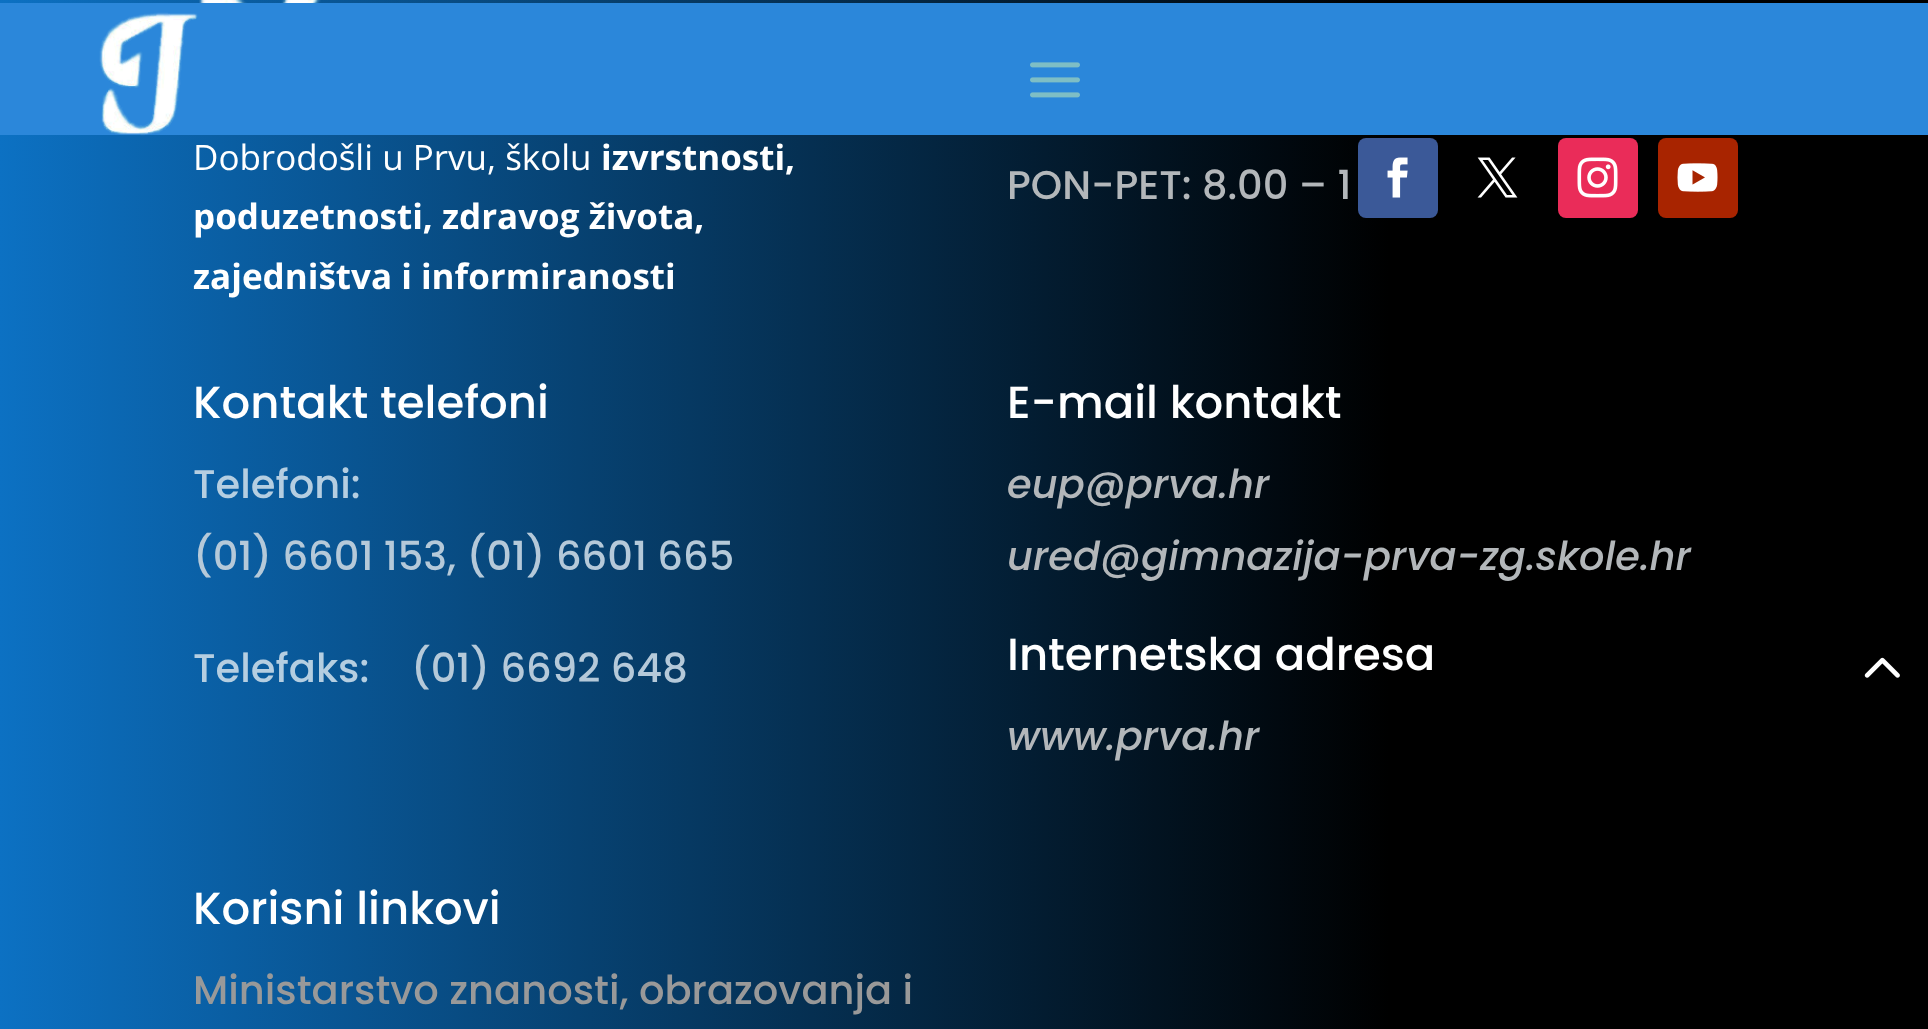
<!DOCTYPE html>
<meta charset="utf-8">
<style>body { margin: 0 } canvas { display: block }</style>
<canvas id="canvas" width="1928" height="1029"></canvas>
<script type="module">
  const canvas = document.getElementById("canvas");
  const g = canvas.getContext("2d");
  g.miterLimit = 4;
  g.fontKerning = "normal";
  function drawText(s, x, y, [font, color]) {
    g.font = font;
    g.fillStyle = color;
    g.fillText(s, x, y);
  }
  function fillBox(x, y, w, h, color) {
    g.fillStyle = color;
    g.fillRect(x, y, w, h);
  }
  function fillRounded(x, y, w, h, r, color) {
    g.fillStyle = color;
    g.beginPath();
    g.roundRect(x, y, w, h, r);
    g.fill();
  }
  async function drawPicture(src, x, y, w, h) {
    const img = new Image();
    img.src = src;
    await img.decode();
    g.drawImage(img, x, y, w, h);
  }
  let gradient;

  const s1 = ["35px Open Sans", "#FFFFFF"];
  const s2 = ["bold 35px Open Sans", "#FFFFFF"];
  const s3 = ["500 40px Poppins", "#B3B7BA"];
  const s4 = ["500 45px Poppins", "#FFFFFF"];
  const s5 = ["500 40px Poppins", "#B5CEE1"];
  const s6 = ["500 40px Poppins", "#B5C9D9"];
  const s7 = ["italic 500 40px Poppins", "#B3B7BA"];
  const s8 = ["500 40px Poppins", "#999999"];

  fillBox(0, 0, 1928, 1029, "#FFFFFF");
  gradient = g.createLinearGradient(0, 823, 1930, 823);
  gradient.addColorStop(0, "#0C71C3");
  gradient.addColorStop(0.72, "#000000");
  g.fillStyle = gradient;
  g.fillRect(0, 0, 1928, 1029);
  fillBox(0, 3, 1928, 132, "#2B87DA");
  await drawPicture("pic1.png", 99, 12, 99, 124);
  await drawPicture("pic2.png", 1030, 62, 50, 36);
  fillRounded(1358, 138, 80, 80, 8, "#3B5998");
  await drawPicture("pic3.png", 1387, 157, 21, 41);
  await drawPicture("pic4.png", 1477, 157, 41, 41);
  fillRounded(1558, 138, 80, 80, 8, "#EA2C59");
  await drawPicture("pic5.png", 1577, 157, 41, 41);
  fillRounded(1658, 138, 80, 80, 8, "#A82400");
  await drawPicture("pic6.png", 1677, 163, 41, 29);
  await drawPicture("pic7.png", 199, 0, 122, 3);
  drawText("Dobrodošli u Prvu, školu", 193, 170, s1);
  drawText("izvrstnosti,", 601, 170, s2);
  drawText("poduzetnosti, zdravog života,", 193, 229, s2);
  drawText("zajedništva i informiranosti", 193, 289, s2);
  drawText("PON-PET: 8.00 – 1", 1007, 199, s3);
  drawText("Kontakt telefoni", 193, 418, s4);
  drawText("Telefoni:", 193, 498, s5);
  drawText("(01) 6601 153, (01) 6601 665", 193, 570, s6);
  drawText("Telefaks:", 193, 682, s5);
  drawText("(01) 6692 648", 411, 682, s6);
  drawText("E-mail kontakt", 1007, 418, s4);
  drawText("eup@prva.hr", 1007, 498, s7);
  drawText("ured@gimnazija-prva-zg.skole.hr", 1007, 570, s7);
  drawText("Internetska adresa", 1007, 670, s4);
  drawText("www.prva.hr", 1007, 750, s7);
  drawText("Korisni linkovi", 193, 924, s4);
  drawText("Ministarstvo znanosti, obrazovanja i", 193, 1004, s8);
  await drawPicture("pic8.png", 1864, 657, 36, 21);
</script>
